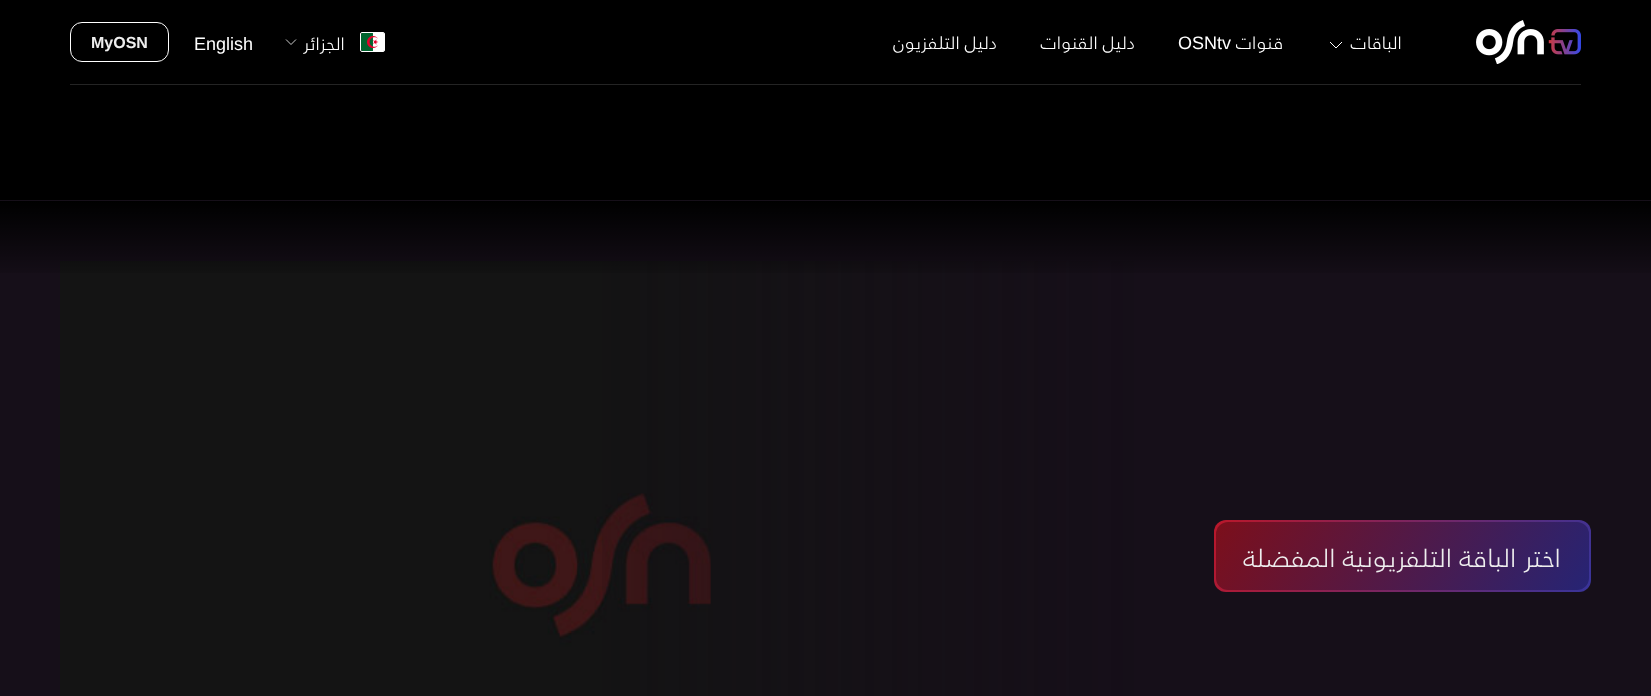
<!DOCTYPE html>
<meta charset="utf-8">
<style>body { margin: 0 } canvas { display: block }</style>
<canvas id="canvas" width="1651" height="696"></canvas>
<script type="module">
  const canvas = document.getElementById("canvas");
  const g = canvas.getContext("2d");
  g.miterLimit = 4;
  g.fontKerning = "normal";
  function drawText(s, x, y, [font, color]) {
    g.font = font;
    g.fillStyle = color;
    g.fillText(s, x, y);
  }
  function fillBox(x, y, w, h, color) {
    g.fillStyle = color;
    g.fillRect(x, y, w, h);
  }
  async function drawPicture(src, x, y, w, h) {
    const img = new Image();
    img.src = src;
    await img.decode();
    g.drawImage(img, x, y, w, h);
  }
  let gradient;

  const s1 = ["300 18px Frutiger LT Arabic", "#FFFFFF"];
  const s2 = ["18px Liberation Sans", "#FFFFFF"];
  const s3 = ["bold 16px Liberation Sans", "#EEEEEE"];
  const s4 = ["300 26px Frutiger LT Arabic", "#EEEEEE"];

  fillBox(0, 0, 1651, 696, "#000000");
  fillBox(70, 84, 1511, 1, "#242424");
  await drawPicture("pic1.png", 1476, 20, 105, 44);
  g.direction = "rtl";
  drawText("الباقات", 1402, 49, s1);
  g.beginPath();
  g.moveTo(1342, 42);
  g.lineTo(1336, 48);
  g.lineTo(1330, 42);
  g.strokeStyle = "#FFFFFF";
  g.stroke();
  drawText("قنوات", 1283, 49, s1);
  g.direction = "ltr";
  drawText("OSNtv", 1178, 49, s2);
  g.direction = "rtl";
  drawText("دليل القنوات", 1135, 49, s1);
  drawText("دليل التلفزيون", 997, 49, s1);
  await drawPicture("pic2.png", 361, 33, 24, 18);
  g.beginPath();
  g.roundRect(360.5, 32.5, 24, 19, 1.5);
  g.stroke();
  drawText("الجزائر", 345, 50, s1);
  g.beginPath();
  g.moveTo(296, 39.5);
  g.lineTo(291, 44.5);
  g.lineTo(286, 39.5);
  g.lineWidth = 0.8;
  g.stroke();
  g.direction = "ltr";
  drawText("English", 194, 50, s2);
  g.beginPath();
  g.roundRect(70.5, 22.5, 98, 39, 11.5);
  g.lineWidth = 1;
  g.stroke();
  drawText("MyOSN", 91, 48, s3);
  fillBox(0, 200, 1651, 496, "#160F19");
  await drawPicture("pic3.png", 60, 261, 1082, 435);
  await drawPicture("pic4.png", 602, 261, 540, 435);
  gradient = g.createLinearGradient(826, 281, 826, 201);
  gradient.addColorStop(0, "rgba(0, 0, 0, 0)");
  gradient.addColorStop(1, "#000000");
  g.fillStyle = gradient;
  g.fillRect(0, 201, 1651, 72);
  gradient = g.createLinearGradient(1567, 640, 1238, 472);
  gradient.addColorStop(0, "#38349A");
  gradient.addColorStop(1, "#BA172A");
  g.fillStyle = gradient;
  g.beginPath();
  g.roundRect(1214, 520, 377, 72, 12);
  g.fill();
  gradient = g.createLinearGradient(1253, 463, 1552, 649);
  gradient.addColorStop(0, "#7C0F1B");
  gradient.addColorStop(1, "#262474");
  g.fillStyle = gradient;
  g.beginPath();
  g.roundRect(1216, 522, 373, 68, 12);
  g.fill();
  g.direction = "rtl";
  drawText("اختر الباقة التلفزيونية المفضلة", 1561, 567, s4);
</script>
